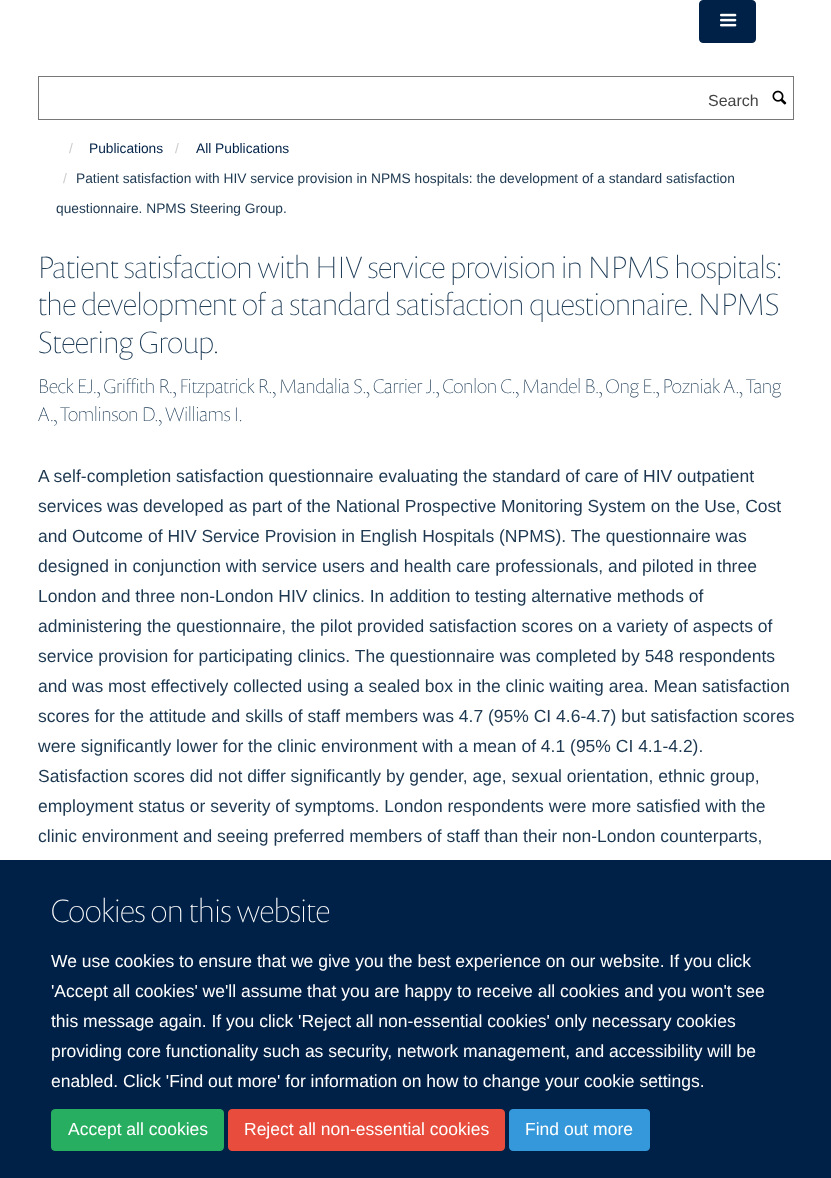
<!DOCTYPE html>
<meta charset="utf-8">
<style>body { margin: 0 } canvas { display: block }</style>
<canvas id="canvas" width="831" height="1178"></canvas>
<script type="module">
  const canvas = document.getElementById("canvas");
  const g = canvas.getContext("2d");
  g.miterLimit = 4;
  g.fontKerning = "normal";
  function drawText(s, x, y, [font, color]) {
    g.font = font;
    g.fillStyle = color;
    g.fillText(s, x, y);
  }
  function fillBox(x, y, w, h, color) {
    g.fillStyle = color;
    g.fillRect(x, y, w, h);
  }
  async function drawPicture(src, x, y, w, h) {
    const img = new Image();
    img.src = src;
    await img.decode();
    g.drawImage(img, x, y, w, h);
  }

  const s1 = ["16px Liberation Sans", "#444444"];
  const s2 = ["13.75px Liberation Sans", "#CCCCCC"];
  const s3 = ["13.75px Liberation Sans", "#002147"];
  const s4 = ["13.75px Liberation Sans", "#1D3850"];
  const s5 = ["100 31.25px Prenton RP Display", "#203E58"];
  const s6 = ["100 20px Prenton RP Display", "#203E58"];
  const s7 = ["17.5px Liberation Sans", "#1D3850"];
  const s8 = ["100 32.5px Prenton RP Display", "#FFFFFF"];
  const s9 = ["17.5px Liberation Sans", "#FFFFFF"];

  fillBox(0, 0, 831, 1178, "#FFFFFF");
  g.fillStyle = "#002147";
  g.beginPath();
  g.roundRect(699.5, 0.5, 56, 42, 3.5);
  g.fill();
  g.strokeStyle = "#002147";
  g.stroke();
  await drawPicture("pic1.png", 720, 13, 17, 14);
  g.strokeStyle = "#777777";
  g.strokeRect(38.5, 76.5, 755, 43);
  drawText("Search", 708, 106, s1);
  await drawPicture("pic2.png", 772, 90, 15, 15);
  drawText("/", 69, 153, s2);
  drawText("Publications", 89, 153, s3);
  drawText("/", 175, 153, s2);
  drawText("All Publications", 196, 153, s3);
  drawText("/", 63, 183, s2);
  drawText("Patient satisfaction with HIV service provision in NPMS hospitals: the development of a standard satisfaction", 76, 183, s4);
  drawText("questionnaire. NPMS Steering Group.", 56, 213, s4);
  drawText("Patient satisfaction with HIV service provision in NPMS hospitals:", 38, 278, s5);
  drawText("the development of a standard satisfaction questionnaire. NPMS", 38, 315, s5);
  drawText("Steering Group.", 38, 353, s5);
  drawText("Beck EJ., Griffith R., Fitzpatrick R., Mandalia S., Carrier J., Conlon C., Mandel B., Ong E., Pozniak A., Tang", 38, 393, s6);
  drawText("A., Tomlinson D., Williams I.", 38, 421, s6);
  drawText("A self-completion satisfaction questionnaire evaluating the standard of care of HIV outpatient", 38, 482, s7);
  drawText("services was developed as part of the National Prospective Monitoring System on the Use, Cost", 38, 512, s7);
  drawText("and Outcome of HIV Service Provision in English Hospitals (NPMS). The questionnaire was", 38, 542, s7);
  drawText("designed in conjunction with service users and health care professionals, and piloted in three", 38, 572, s7);
  drawText("London and three non-London HIV clinics. In addition to testing alternative methods of", 38, 602, s7);
  drawText("administering the questionnaire, the pilot provided satisfaction scores on a variety of aspects of", 38, 632, s7);
  drawText("service provision for participating clinics. The questionnaire was completed by 548 respondents", 38, 662, s7);
  drawText("and was most effectively collected using a sealed box in the clinic waiting area. Mean satisfaction", 38, 692, s7);
  drawText("scores for the attitude and skills of staff members was 4.7 (95% CI 4.6-4.7) but satisfaction scores", 38, 722, s7);
  drawText("were significantly lower for the clinic environment with a mean of 4.1 (95% CI 4.1-4.2).", 38, 752, s7);
  drawText("Satisfaction scores did not differ significantly by gender, age, sexual orientation, ethnic group,", 38, 782, s7);
  drawText("employment status or severity of symptoms. London respondents were more satisfied with the", 38, 812, s7);
  drawText("clinic environment and seeing preferred members of staff than their non-London counterparts,", 38, 842, s7);
  fillBox(0, 860, 831, 318, "#002147");
  drawText("Cookies on this website", 51, 922, s8);
  drawText("We use cookies to ensure that we give you the best experience on our website. If you click", 51, 967, s9);
  drawText("'Accept all cookies' we'll assume that you are happy to receive all cookies and you won't see", 51, 997, s9);
  drawText("this message again. If you click 'Reject all non-essential cookies' only necessary cookies", 51, 1027, s9);
  drawText("providing core functionality such as security, network management, and accessibility will be", 51, 1057, s9);
  drawText("enabled. Click 'Find out more' for information on how to change your cookie settings.", 51, 1087, s9);
  g.fillStyle = "#27AE60";
  g.beginPath();
  g.roundRect(51.5, 1109.5, 172, 41, 3.5);
  g.fill();
  g.strokeStyle = "#27AE60";
  g.stroke();
  drawText("Accept all cookies", 68, 1135, s9);
  g.fillStyle = "#E74C3C";
  g.beginPath();
  g.roundRect(228.5, 1109.5, 276, 41, 3.5);
  g.fill();
  g.strokeStyle = "#E74C3C";
  g.stroke();
  drawText("Reject all non-essential cookies", 244, 1135, s9);
  g.fillStyle = "#3498DB";
  g.beginPath();
  g.roundRect(509.5, 1109.5, 140, 41, 3.5);
  g.fill();
  g.strokeStyle = "#3498DB";
  g.stroke();
  drawText("Find out more", 525, 1135, s9);
</script>
